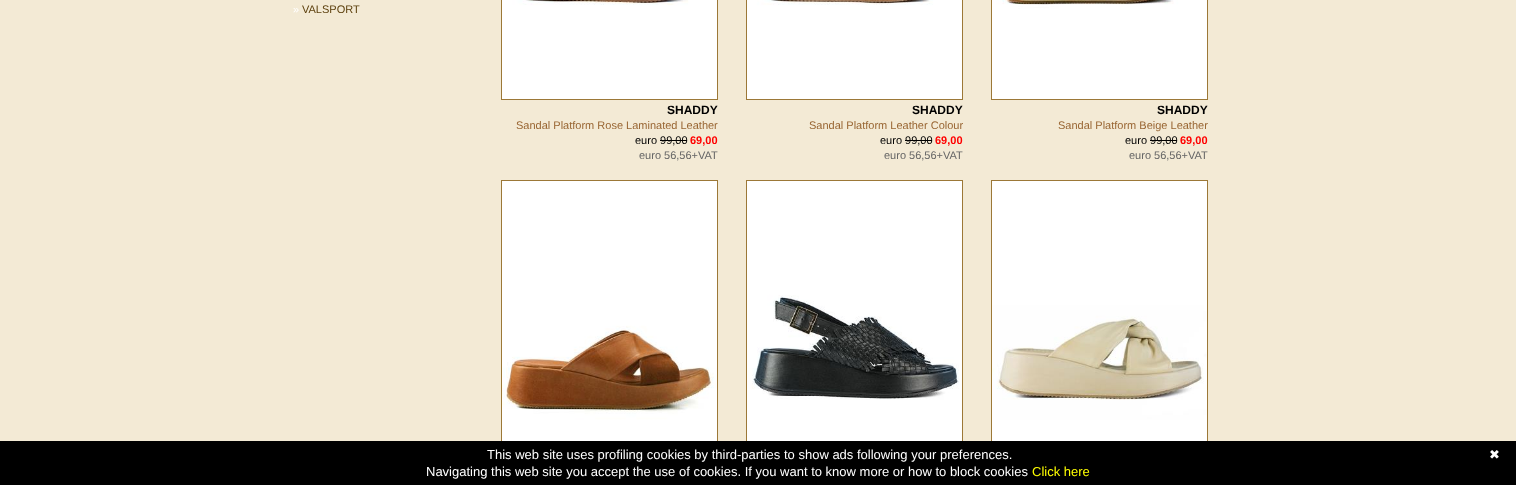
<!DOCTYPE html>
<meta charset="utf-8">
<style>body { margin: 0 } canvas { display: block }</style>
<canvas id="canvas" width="1516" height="485"></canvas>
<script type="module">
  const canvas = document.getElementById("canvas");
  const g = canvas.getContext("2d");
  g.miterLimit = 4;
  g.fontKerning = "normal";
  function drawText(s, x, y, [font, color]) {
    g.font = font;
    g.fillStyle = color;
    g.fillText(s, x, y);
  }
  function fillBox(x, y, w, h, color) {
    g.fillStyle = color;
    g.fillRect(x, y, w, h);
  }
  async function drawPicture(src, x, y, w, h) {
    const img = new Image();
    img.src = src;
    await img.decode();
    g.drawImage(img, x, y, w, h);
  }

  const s1 = ["11px Liberation Sans", "#FFFFFF"];
  const s2 = ["11px Liberation Sans", "#5E420F"];
  const s3 = ["bold 12px Liberation Sans", "#000000"];
  const s4 = ["11px Liberation Sans", "#996633"];
  const s5 = ["11px Liberation Sans", "#000000"];
  const s6 = ["bold 11px Liberation Sans", "#FF0000"];
  const s7 = ["11px Liberation Sans", "#666666"];
  const s8 = ["13px Liberation Sans", "#FFFFFF"];
  const s9 = ["13px DejaVu Sans", "#FFFFFF"];
  const s10 = ["13px Liberation Sans", "#FFFF00"];

  fillBox(0, 0, 1516, 485, "#F3EAD5");
  drawText("»", 293, 13, s1);
  drawText("VALSPORT", 302, 13, s2);
  g.strokeStyle = "#9C7837";
  g.strokeRect(501.5, -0.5, 216, 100);
  await drawPicture("pic1.png", 502, 0, 215, 99);
  drawText("SHADDY", 667, 114, s3);
  drawText("Sandal Platform Rose Laminated Leather", 516, 129, s4);
  drawText("euro 99,00", 635, 144, s5);
  drawText("69,00", 690, 144, s6);
  fillBox(660, 140, 27, 1, "#000000");
  drawText("euro 56,56+VAT", 639, 159, s7);
  g.strokeRect(746.5, -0.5, 216, 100);
  await drawPicture("pic2.png", 747, 0, 215, 99);
  drawText("SHADDY", 912, 114, s3);
  drawText("Sandal Platform Leather Colour", 809, 129, s4);
  drawText("euro 99,00", 880, 144, s5);
  drawText("69,00", 935, 144, s6);
  fillBox(905, 140, 27, 1, "#000000");
  drawText("euro 56,56+VAT", 884, 159, s7);
  g.strokeRect(991.5, -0.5, 216, 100);
  await drawPicture("pic3.png", 992, 0, 215, 99);
  drawText("SHADDY", 1157, 114, s3);
  drawText("Sandal Platform Beige Leather", 1058, 129, s4);
  drawText("euro 99,00", 1125, 144, s5);
  drawText("69,00", 1180, 144, s6);
  fillBox(1150, 140, 27, 1, "#000000");
  drawText("euro 56,56+VAT", 1129, 159, s7);
  g.strokeRect(501.5, 180.5, 216, 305);
  await drawPicture("pic4.png", 502, 181, 215, 260);
  g.strokeRect(746.5, 180.5, 216, 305);
  await drawPicture("pic5.png", 747, 181, 215, 260);
  g.strokeRect(991.5, 180.5, 216, 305);
  await drawPicture("pic6.png", 992, 181, 215, 260);
  fillBox(0, 441, 1516, 44, "#000000");
  drawText("This web site uses profiling cookies by third-parties to show ads following your preferences.", 487, 459, s8);
  drawText("✖", 1489, 459, s9);
  drawText("Navigating this web site you accept the use of cookies. If you want to know more or how to block cookies", 426, 476, s8);
  drawText("Click here", 1032, 476, s10);
</script>
